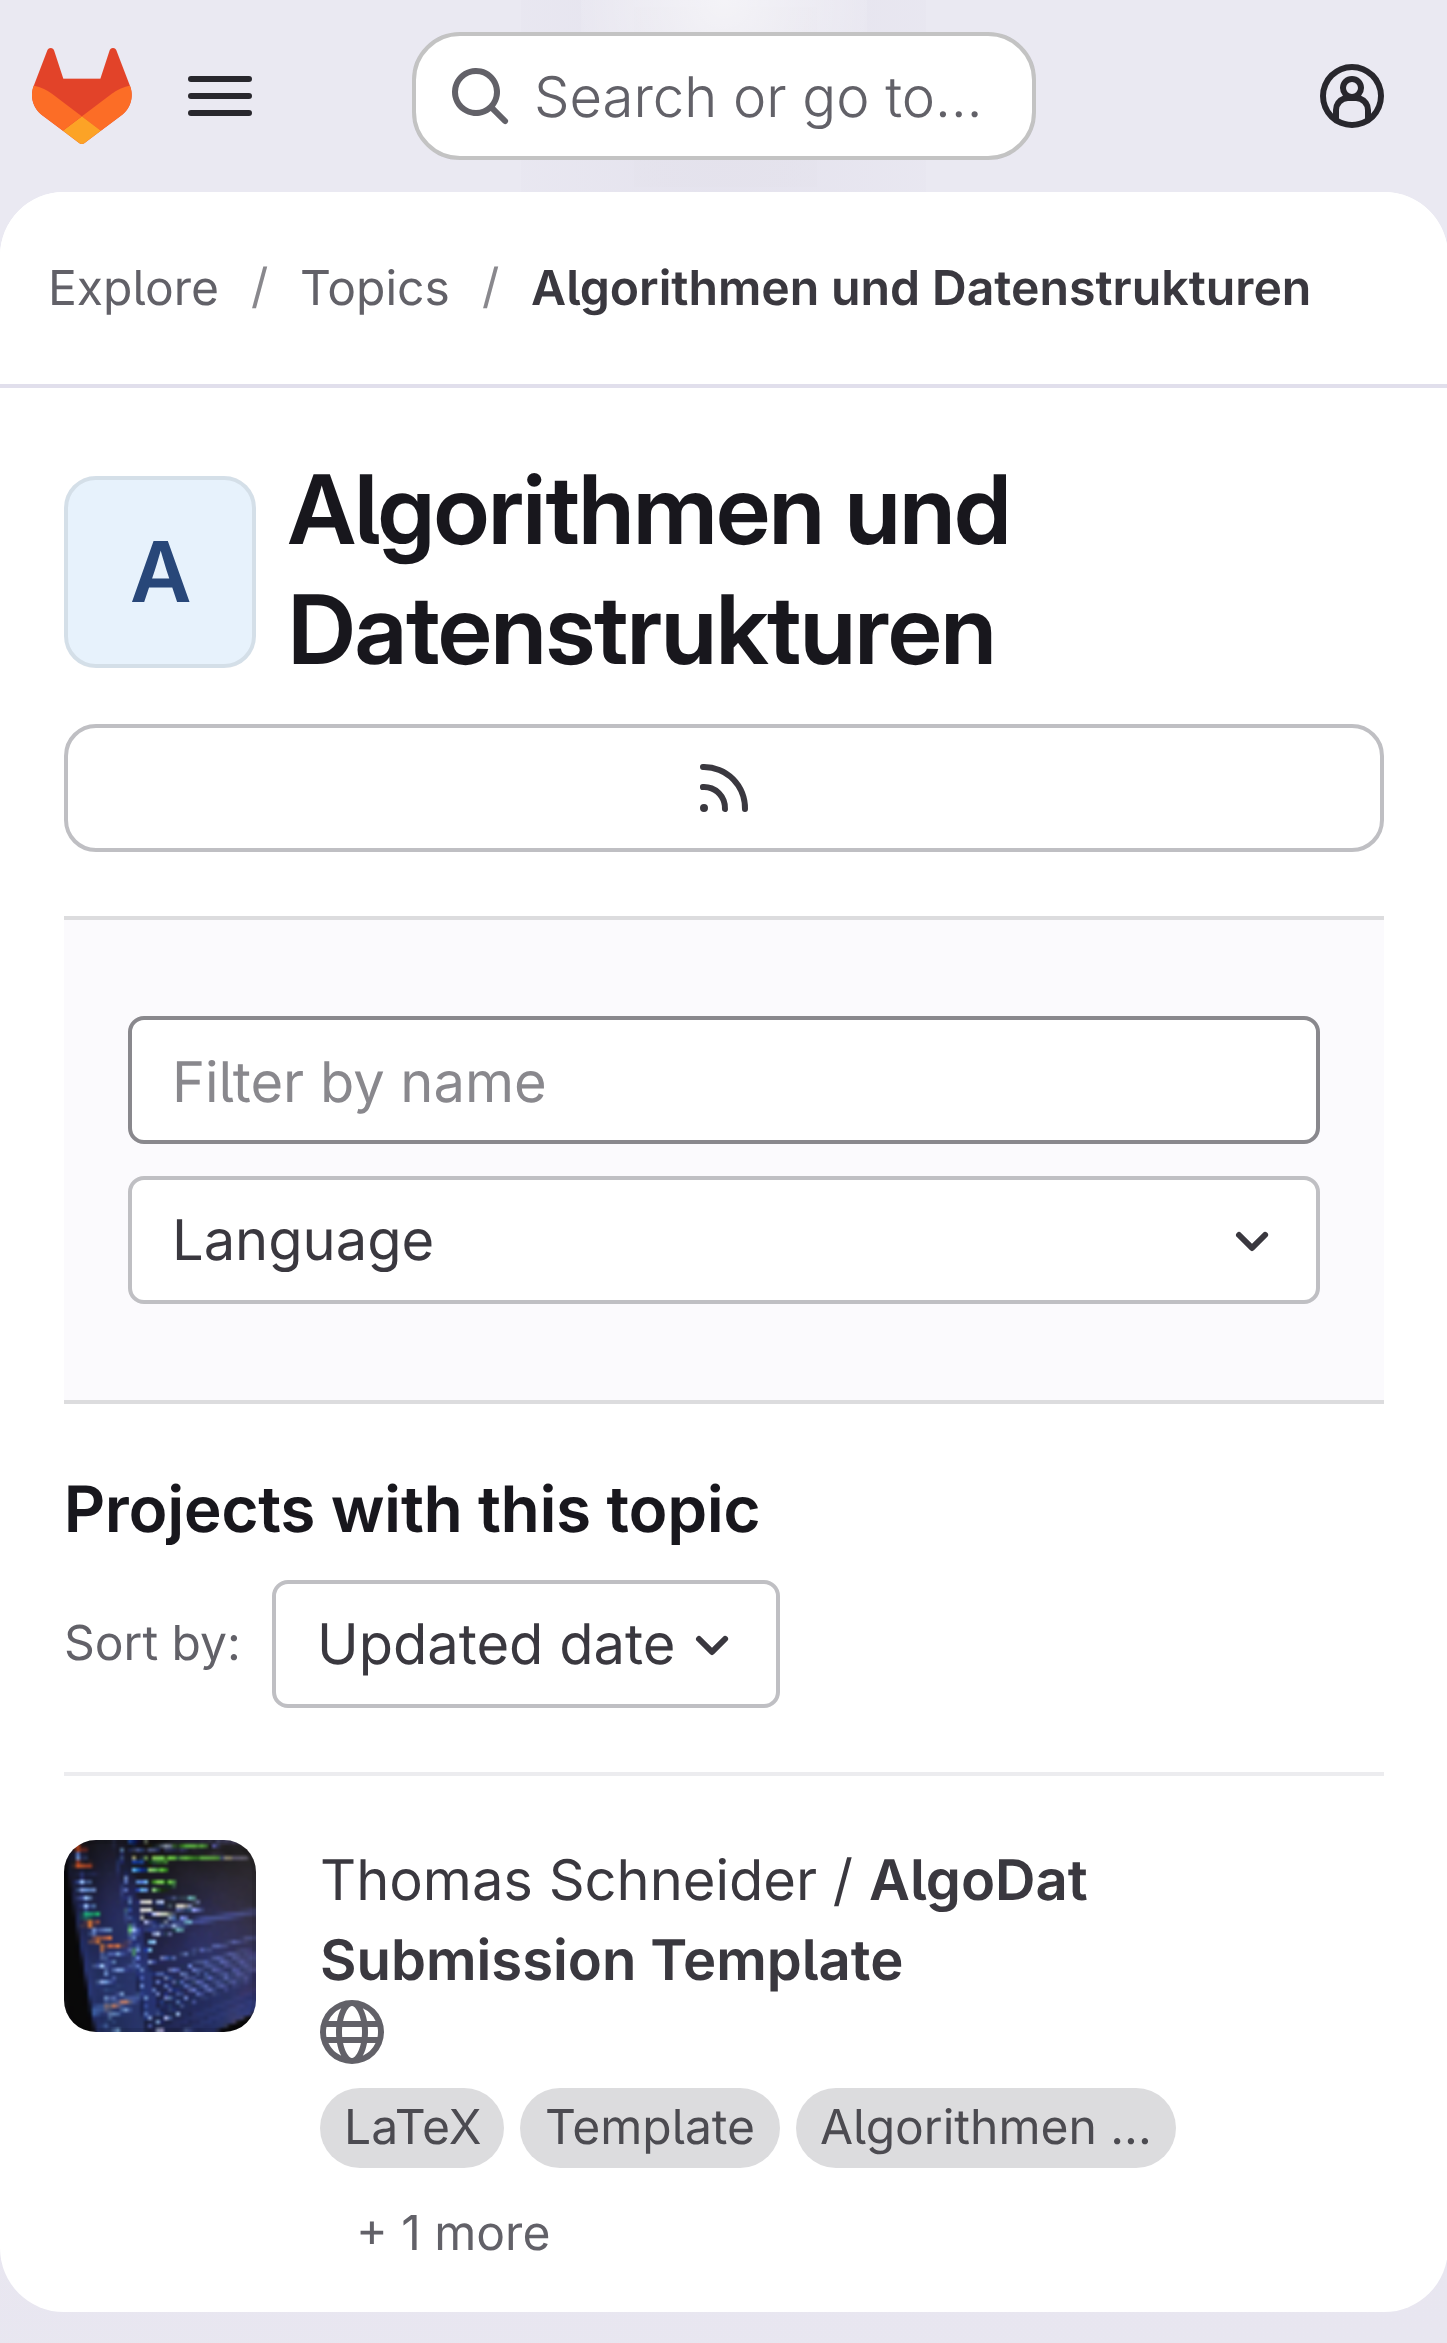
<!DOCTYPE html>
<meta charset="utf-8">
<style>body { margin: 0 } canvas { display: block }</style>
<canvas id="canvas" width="1447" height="2343"></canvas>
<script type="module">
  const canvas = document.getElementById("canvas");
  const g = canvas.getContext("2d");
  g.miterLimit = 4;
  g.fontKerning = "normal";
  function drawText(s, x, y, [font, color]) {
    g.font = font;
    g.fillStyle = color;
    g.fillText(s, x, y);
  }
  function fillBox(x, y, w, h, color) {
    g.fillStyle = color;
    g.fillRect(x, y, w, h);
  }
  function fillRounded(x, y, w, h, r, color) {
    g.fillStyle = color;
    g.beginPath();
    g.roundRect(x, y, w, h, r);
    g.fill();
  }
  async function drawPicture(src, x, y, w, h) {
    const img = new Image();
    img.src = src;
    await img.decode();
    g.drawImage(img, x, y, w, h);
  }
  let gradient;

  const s1 = ["300 56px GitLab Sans", "#626168"];
  const s2 = ["48px GitLab Sans", "#626168"];
  const s3 = ["48px GitLab Sans", "#89888D"];
  const s4 = ["600 48px 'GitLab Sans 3'", "#3A383F"];
  const s5 = ["600 84px 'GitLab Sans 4'", "#284779"];
  const s6 = ["600 96px GitLab Sans", "#18171D"];
  const s7 = ["56px GitLab Sans", "#89888D"];
  const s8 = ["56px GitLab Sans", "#3A383F"];
  const s9 = ["600 64px 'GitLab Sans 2'", "#18171D"];
  const s10 = ["600 56px 'GitLab Sans 3'", "#3A383F"];
  const s11 = ["48px GitLab Sans", "#4C4B51"];

  fillBox(0, 0, 1447, 2343, "#FFFFFF");
  gradient = g.createLinearGradient(946, 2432, 502, -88);
  gradient.addColorStop(0, "#E8E6F0");
  gradient.addColorStop(0.7, "#EAE9F2");
  g.fillStyle = gradient;
  g.fillRect(0, 0, 1447, 2343);
  gradient = g.createRadialGradient(724, 0, 0, 724, 0, 724);
  gradient.addColorStop(0, "#E4E2ED");
  gradient.addColorStop(0.39, "rgba(228, 226, 237, 0)");
  g.fillStyle = gradient;
  g.beginPath();
  g.rect(521, 0, 405, 192);
  g.save();
  g.clip();
  g.scale(1, 2344 / 724);
  g.fillRect(0, 0, 1447, 724);
  g.restore();
  gradient = g.createRadialGradient(724, 0, 0, 724, 0, 724);
  gradient.addColorStop(0, "#E4E2EC");
  gradient.addColorStop(0.28, "rgba(228, 226, 236, 0)");
  g.fillStyle = gradient;
  g.beginPath();
  g.rect(634, 7, 183, 180);
  g.save();
  g.clip();
  g.scale(1, 2344 / 724);
  g.fillRect(0, 0, 1447, 724);
  g.restore();
  gradient = g.createRadialGradient(724, 0, 0, 724, 0, 2453);
  gradient.addColorStop(0, "rgba(255, 255, 255, 0.6)");
  gradient.addColorStop(0.07, "rgba(255, 255, 255, 0)");
  g.fillStyle = gradient;
  g.fillRect(581, 0, 286, 146);
  await drawPicture("pic1.png", 32, 48, 100, 96);
  await drawPicture("pic2.png", 188, 76, 64, 40);
  fillRounded(412, 32, 624, 128, 48, "#FFFFFF");
  g.beginPath();
  g.roundRect(414, 34, 620, 124, 46);
  g.strokeStyle = "rgba(5, 5, 6, 0.24)";
  g.lineWidth = 4;
  g.stroke();
  await drawPicture("pic3.png", 452, 68, 57, 57);
  drawText("Search or go to…", 534, 117, s1);
  await drawPicture("pic4.png", 1320, 64, 64, 64);
  fillRounded(0, 192, 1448, 2120, 64, "#FFFFFF");
  g.beginPath();
  g.moveTo(64, 192);
  g.lineTo(1384, 192);
  g.bezierCurveTo(1419.5, 192, 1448, 220.5, 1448, 256);
  g.lineTo(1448, 388);
  g.lineTo(0, 388);
  g.lineTo(0, 256);
  g.bezierCurveTo(0, 220.5, 28.5, 192, 64, 192);
  g.closePath();
  g.fill();
  fillBox(0, 384, 1447, 4, "#E1DFEC");
  drawText("Explore", 48, 305, s2);
  drawText("/", 251, 303, s3);
  drawText("Topics", 300, 305, s2);
  drawText("/", 482, 303, s3);
  drawText("Algorithmen und Datenstrukturen", 531, 305, s4);
  fillRounded(64, 476, 192, 192, 32, "#E7F2FC");
  g.beginPath();
  g.roundRect(66, 478, 188, 188, 30);
  g.strokeStyle = "rgba(5, 5, 6, 0.08)";
  g.stroke();
  g.letterSpacing = "-1px";
  drawText("A", 131, 602, s5);
  drawText("Algorithmen und", 288, 544, s6);
  drawText("Datenstrukturen", 288, 664, s6);
  g.beginPath();
  g.roundRect(66, 726, 1316, 124, 30);
  g.strokeStyle = "#BFBFC3";
  g.stroke();
  await drawPicture("pic5.png", 700, 764, 48, 48);
  fillBox(64, 920, 1320, 480, "#FBFAFD");
  fillBox(64, 916, 1320, 4, "#DCDCDE");
  fillBox(64, 1400, 1320, 4, "#DCDCDE");
  g.fillStyle = "#FFFFFF";
  g.beginPath();
  g.roundRect(130, 1018, 1188, 124, 14);
  g.fill();
  g.strokeStyle = "#89888D";
  g.stroke();
  g.letterSpacing = "0px";
  drawText("Filter by name", 172, 1102, s7);
  g.fillStyle = "#FFFFFF";
  g.beginPath();
  g.roundRect(130, 1178, 1188, 124, 14);
  g.fill();
  g.strokeStyle = "#BFBFC3";
  g.stroke();
  drawText("Language", 172, 1260, s8);
  await drawPicture("pic6.png", 1235, 1231, 34, 21);
  fillBox(64, 1772, 1320, 4, "#ECECEF");
  drawText("Projects with this topic", 64, 1532, s9);
  drawText("Sort by:", 64, 1660, s2);
  g.beginPath();
  g.roundRect(274, 1582, 504, 124, 14);
  g.stroke();
  drawText("Updated date", 317, 1664, s8);
  await drawPicture("pic6.png", 695, 1635, 34, 21);
  await drawPicture("pic7.png", 64, 1840, 192, 192);
  g.beginPath();
  g.roundRect(66, 1842, 188, 188, 30);
  g.strokeStyle = "rgba(5, 5, 6, 0.08)";
  g.stroke();
  drawText("Thomas Schneider /", 320, 1900, s8);
  drawText("AlgoDat", 869, 1900, s10);
  drawText("Submission Template", 320, 1980, s10);
  await drawPicture("pic8.png", 320, 2000, 64, 64);
  fillRounded(320, 2088, 184, 80, 40, "#DCDCDE");
  drawText("LaTeX", 344, 2144, s11);
  fillRounded(520, 2088, 260, 80, 40, "#DCDCDE");
  drawText("Template", 545, 2144, s11);
  fillRounded(796, 2088, 380, 80, 40, "#DCDCDE");
  drawText("Algorithmen ...", 820, 2144, s11);
  drawText("+ 1 more", 356, 2250, s2);
</script>
